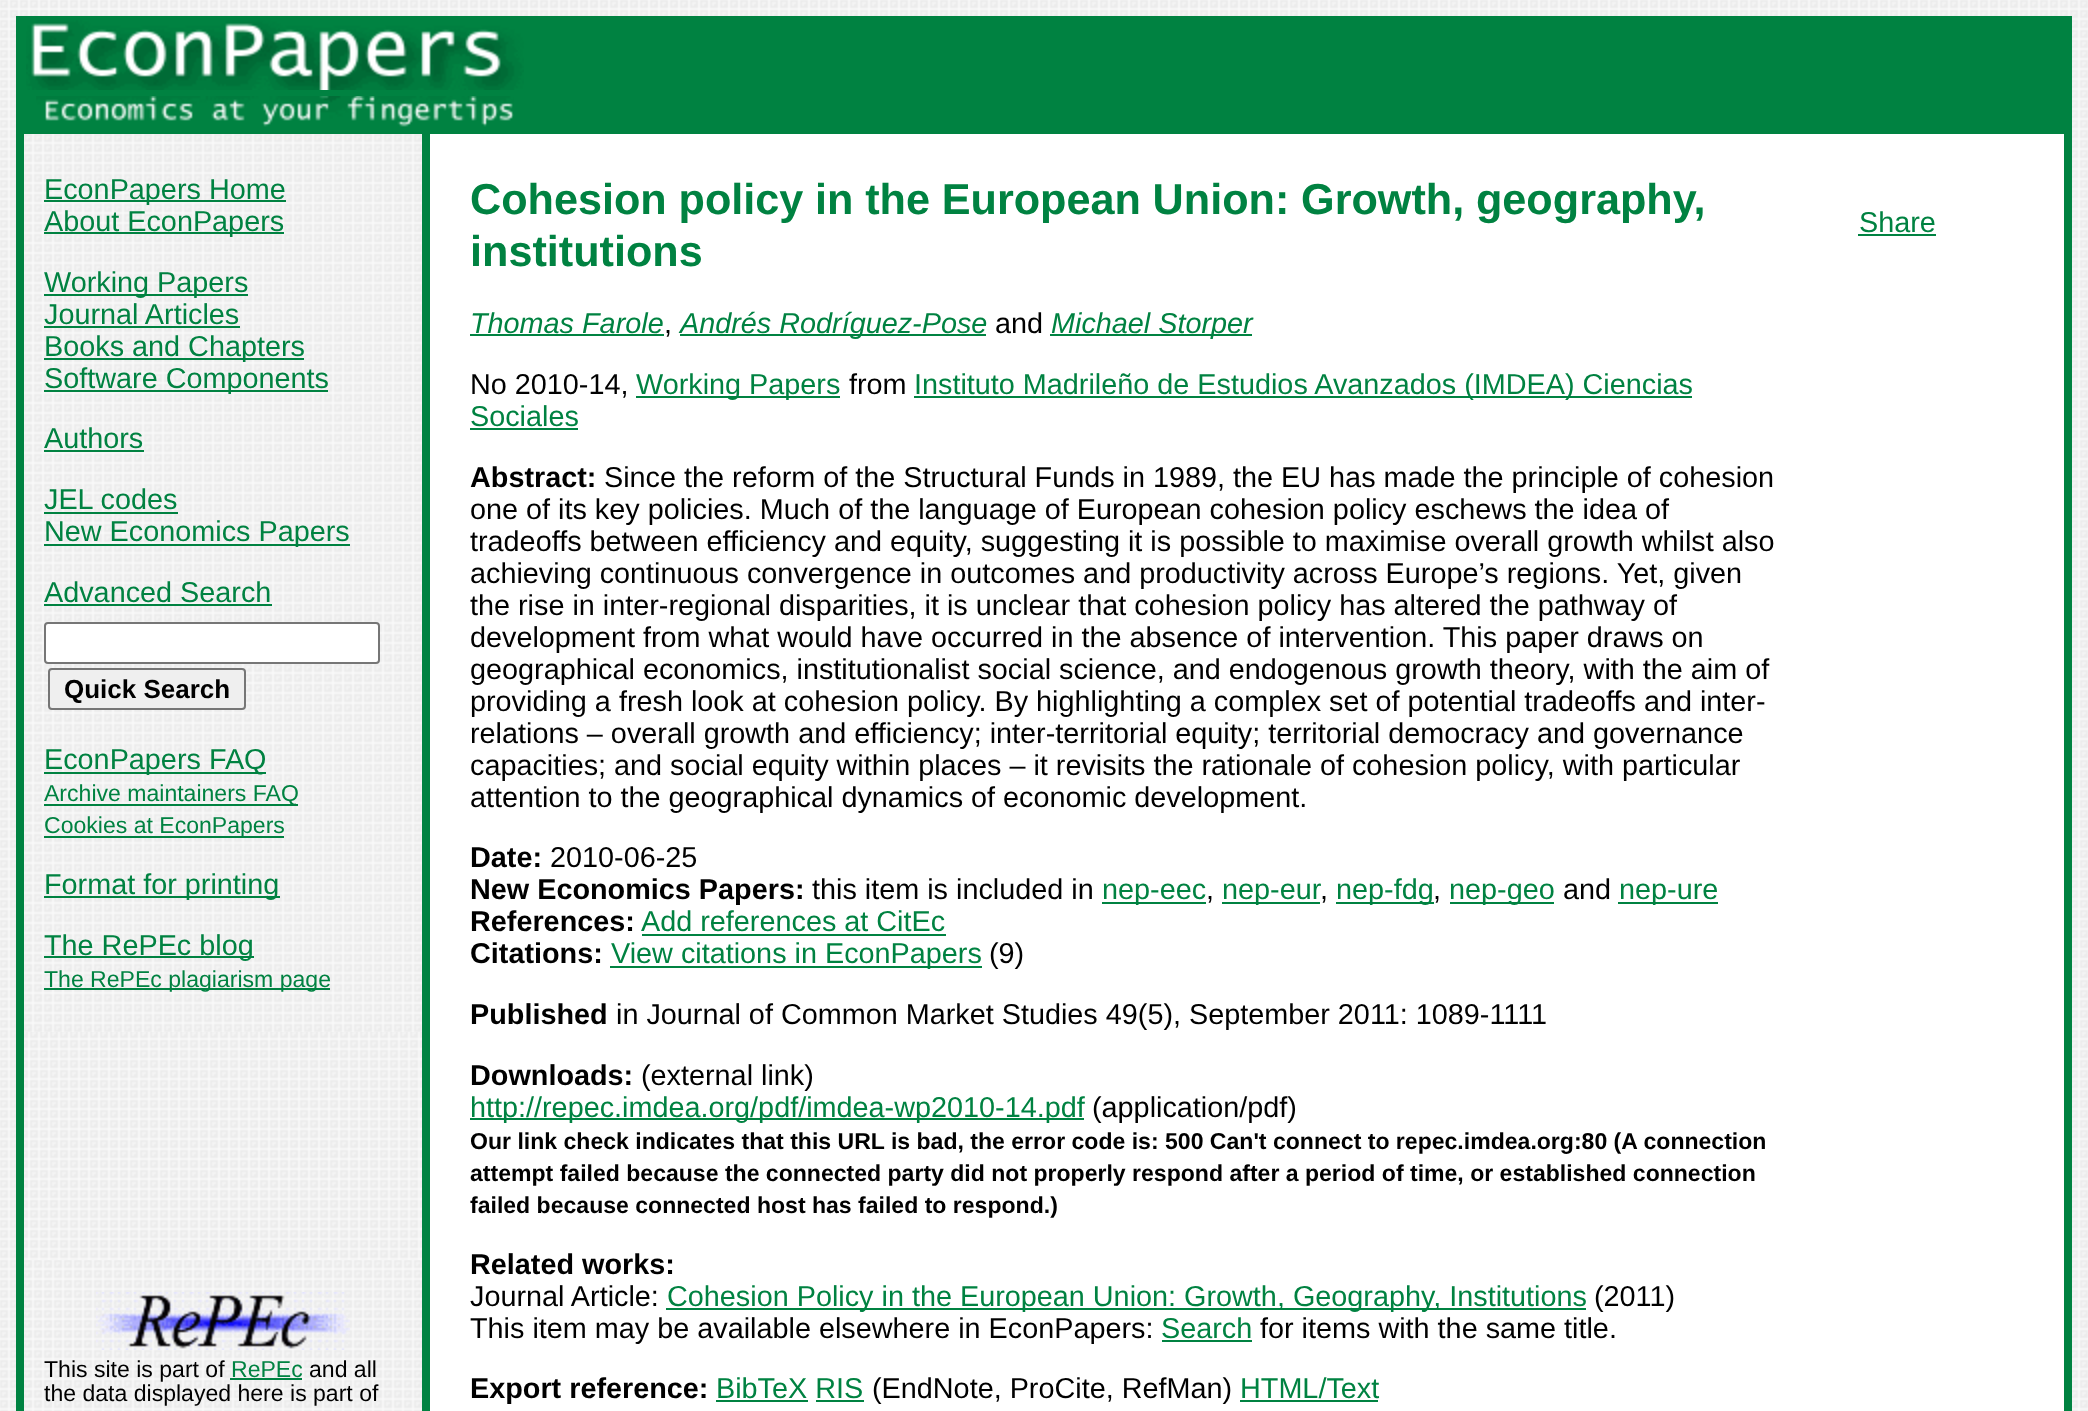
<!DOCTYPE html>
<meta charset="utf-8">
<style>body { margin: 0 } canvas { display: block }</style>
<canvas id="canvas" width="2088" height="1411"></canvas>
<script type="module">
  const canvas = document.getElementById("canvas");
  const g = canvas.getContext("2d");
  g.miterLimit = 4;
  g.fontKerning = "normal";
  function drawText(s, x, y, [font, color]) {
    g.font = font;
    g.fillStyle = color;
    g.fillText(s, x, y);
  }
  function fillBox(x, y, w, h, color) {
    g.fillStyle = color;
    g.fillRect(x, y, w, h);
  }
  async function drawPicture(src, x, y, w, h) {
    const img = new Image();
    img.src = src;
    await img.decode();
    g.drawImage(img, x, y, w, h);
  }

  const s1 = ["28.8px Liberation Sans", "#008241"];
  const s2 = ["bold 26px Liberation Sans", "#000000"];
  const s3 = ["23.05px Liberation Sans", "#008241"];
  const s4 = ["bold 43.2px Liberation Sans", "#008241"];
  const s5 = ["italic 28.8px Liberation Sans", "#008241"];
  const s6 = ["28.8px Liberation Sans", "#000000"];
  const s7 = ["bold 28.8px Liberation Sans", "#000000"];
  const s8 = ["bold 23.05px Liberation Sans", "#000000"];
  const s9 = ["23.05px Liberation Sans", "#000000"];

  fillBox(0, 0, 2088, 1411, "#FFFFFF");
  await drawPicture("pic1.png", 0, 0, 2088, 1411);
  fillBox(16, 16, 8, 1395, "#008241");
  fillBox(24, 16, 2040, 80, "#008241");
  await drawPicture("pic2.png", 26, 20, 498, 70);
  fillBox(2064, 16, 8, 1395, "#008241");
  fillBox(24, 96, 2040, 38, "#008241");
  await drawPicture("pic3.png", 36, 96, 478, 31);
  await drawPicture("pic4.png", 24, 134, 398, 898);
  fillBox(44, 200, 242, 2, "#008241");
  drawText("EconPapers Home", 44, 199, s1);
  fillBox(44, 232, 240, 2, "#008241");
  drawText("About EconPapers", 44, 231, s1);
  fillBox(44, 294, 204, 2, "#008241");
  drawText("Working Papers", 44, 292, s1);
  drawText("Journal Articles", 44, 324, s1);
  fillBox(44, 326, 196, 2, "#008241");
  fillBox(44, 358, 260, 2, "#008241");
  drawText("Books and Chapters", 44, 356, s1);
  fillBox(44, 390, 284, 2, "#008241");
  drawText("Software Components", 44, 388, s1);
  drawText("Authors", 44, 448, s1);
  fillBox(44, 450, 100, 2, "#008241");
  drawText("JEL codes", 44, 509, s1);
  fillBox(44, 512, 134, 2, "#008241");
  fillBox(44, 544, 306, 2, "#008241");
  drawText("New Economics Papers", 44, 541, s1);
  drawText("Advanced Search", 44, 602, s1);
  fillBox(44, 604, 228, 2, "#008241");
  g.fillStyle = "#FFFFFF";
  g.beginPath();
  g.roundRect(45, 623, 334, 40, 3);
  g.fill();
  g.strokeStyle = "#767676";
  g.lineWidth = 2;
  g.stroke();
  g.fillStyle = "#EFEFEF";
  g.beginPath();
  g.roundRect(49, 669, 196, 40, 3);
  g.fill();
  g.stroke();
  drawText("Quick Search", 64, 698, s2);
  fillBox(44, 772, 222, 2, "#008241");
  drawText("EconPapers FAQ", 44, 769, s1);
  fillBox(44, 804, 254, 2, "#008241");
  drawText("Archive maintainers FAQ", 44, 801, s3);
  fillBox(44, 836, 240, 2, "#008241");
  drawText("Cookies at EconPapers", 44, 833, s3);
  fillBox(44, 896, 236, 2, "#008241");
  drawText("Format for printing", 44, 894, s1);
  fillBox(44, 956, 210, 2, "#008241");
  drawText("The RePEc blog", 44, 955, s1);
  fillBox(44, 988, 286, 2, "#008241");
  drawText("The RePEc plagiarism page", 44, 987, s3);
  fillBox(422, 134, 8, 1277, "#008241");
  fillBox(430, 134, 1634, 1277, "#FFFFFF");
  g.wordSpacing = "-0.25px";
  drawText("Cohesion policy in the European Union: Growth, geography,", 470, 214, s4);
  g.wordSpacing = "0px";
  drawText("institutions", 470, 266, s4);
  drawText("Thomas Farole", 470, 333, s5);
  fillBox(470, 334, 194, 2, "#008241");
  drawText(",", 664, 333, s6);
  fillBox(680, 334, 306, 2, "#008241");
  drawText("Andrés Rodríguez-Pose", 680, 333, s5);
  drawText("and", 995, 333, s6);
  fillBox(1050, 334, 202, 2, "#008241");
  drawText("Michael Storper", 1051, 333, s5);
  drawText("No 2010-14,", 470, 394, s6);
  fillBox(636, 396, 204, 2, "#008241");
  drawText("Working Papers", 636, 394, s1);
  drawText("from", 849, 394, s6);
  fillBox(914, 396, 778, 2, "#008241");
  drawText("Instituto Madrileño de Estudios Avanzados (IMDEA) Ciencias", 914, 394, s1);
  drawText("Sociales", 470, 426, s1);
  fillBox(470, 428, 108, 2, "#008241");
  drawText("Abstract:", 470, 487, s7);
  drawText("Since the reform of the Structural Funds in 1989, the EU has made the principle of cohesion", 604, 487, s6);
  drawText("one of its key policies. Much of the language of European cohesion policy eschews the idea of", 470, 519, s6);
  drawText("tradeoffs between efficiency and equity, suggesting it is possible to maximise overall growth whilst also", 470, 551, s6);
  drawText("achieving continuous convergence in outcomes and productivity across Europe’s regions. Yet, given", 470, 583, s6);
  drawText("the rise in inter-regional disparities, it is unclear that cohesion policy has altered the pathway of", 470, 615, s6);
  drawText("development from what would have occurred in the absence of intervention. This paper draws on", 470, 647, s6);
  drawText("geographical economics, institutionalist social science, and endogenous growth theory, with the aim of", 470, 679, s6);
  drawText("providing a fresh look at cohesion policy. By highlighting a complex set of potential tradeoffs and inter-", 470, 711, s6);
  drawText("relations – overall growth and efficiency; inter-territorial equity; territorial democracy and governance", 470, 743, s6);
  drawText("capacities; and social equity within places – it revisits the rationale of cohesion policy, with particular", 470, 775, s6);
  drawText("attention to the geographical dynamics of economic development.", 470, 807, s6);
  drawText("Date:", 470, 867, s7);
  drawText("2010-06-25", 550, 867, s6);
  drawText("New Economics Papers:", 470, 899, s7);
  drawText("this item is included in", 812, 899, s6);
  fillBox(1102, 902, 104, 2, "#008241");
  drawText("nep-eec", 1102, 899, s1);
  drawText(",", 1206, 899, s6);
  fillBox(1222, 902, 98, 2, "#008241");
  drawText("nep-eur", 1222, 899, s1);
  drawText(",", 1320, 899, s6);
  fillBox(1336, 902, 98, 2, "#008241");
  drawText("nep-fdg", 1336, 899, s1);
  drawText(",", 1433, 899, s6);
  fillBox(1450, 902, 104, 2, "#008241");
  drawText("nep-geo", 1449, 899, s1);
  drawText("and", 1563, 899, s6);
  fillBox(1618, 902, 100, 2, "#008241");
  drawText("nep-ure", 1619, 899, s1);
  drawText("References:", 470, 931, s7);
  drawText("Add references at CitEc", 641, 931, s1);
  fillBox(642, 934, 304, 2, "#008241");
  drawText("Citations:", 470, 963, s7);
  fillBox(610, 966, 372, 2, "#008241");
  drawText("View citations in EconPapers", 611, 963, s1);
  drawText("(9)", 989, 963, s6);
  drawText("Published", 470, 1024, s7);
  drawText("in Journal of Common Market Studies 49(5), September 2011: 1089-1111", 616, 1024, s6);
  drawText("Downloads:", 470, 1085, s7);
  drawText("(external link)", 641, 1085, s6);
  fillBox(470, 1118, 614, 2, "#008241");
  drawText("http://repec.imdea.org/pdf/imdea-wp2010-14.pdf", 470, 1117, s1);
  drawText("(application/pdf)", 1092, 1117, s6);
  drawText("Our link check indicates that this URL is bad, the error code is: 500 Can't connect to repec.imdea.org:80 (A connection", 470, 1149, s8);
  drawText("attempt failed because the connected party did not properly respond after a period of time, or established connection", 470, 1181, s8);
  drawText("failed because connected host has failed to respond.)", 470, 1213, s8);
  drawText("Related works:", 470, 1274, s7);
  drawText("Journal Article:", 470, 1306, s6);
  fillBox(666, 1308, 920, 2, "#008241");
  drawText("Cohesion Policy in the European Union: Growth, Geography, Institutions", 667, 1306, s1);
  drawText("(2011)", 1594, 1306, s6);
  drawText("This item may be available elsewhere in EconPapers:", 470, 1338, s6);
  drawText("Search", 1161, 1338, s1);
  fillBox(1162, 1340, 90, 2, "#008241");
  drawText("for items with the same title.", 1260, 1338, s6);
  drawText("Export reference:", 470, 1398, s7);
  drawText("BibTeX RIS", 716, 1398, s1);
  fillBox(716, 1400, 92, 2, "#008241");
  drawText("(EndNote, ProCite, RefMan)", 872, 1398, s6);
  drawText("HTML/Text", 1240, 1398, s1);
  fillBox(1240, 1400, 138, 2, "#008241");
  fillBox(816, 1400, 48, 2, "#008241");
  drawText("Share", 1859, 232, s1);
  fillBox(1858, 234, 78, 2, "#008241");
  await drawPicture("pic5.png", 26, 1260, 394, 151);
  await drawPicture("pic6.png", 96, 1292, 254, 58);
  drawText("This site is part of", 44, 1377, s9);
  drawText("RePEc", 231, 1377, s3);
  fillBox(230, 1378, 72, 2, "#008241");
  drawText("and all", 309, 1377, s9);
  drawText("the data displayed here is part of", 44, 1401, s9);
</script>
